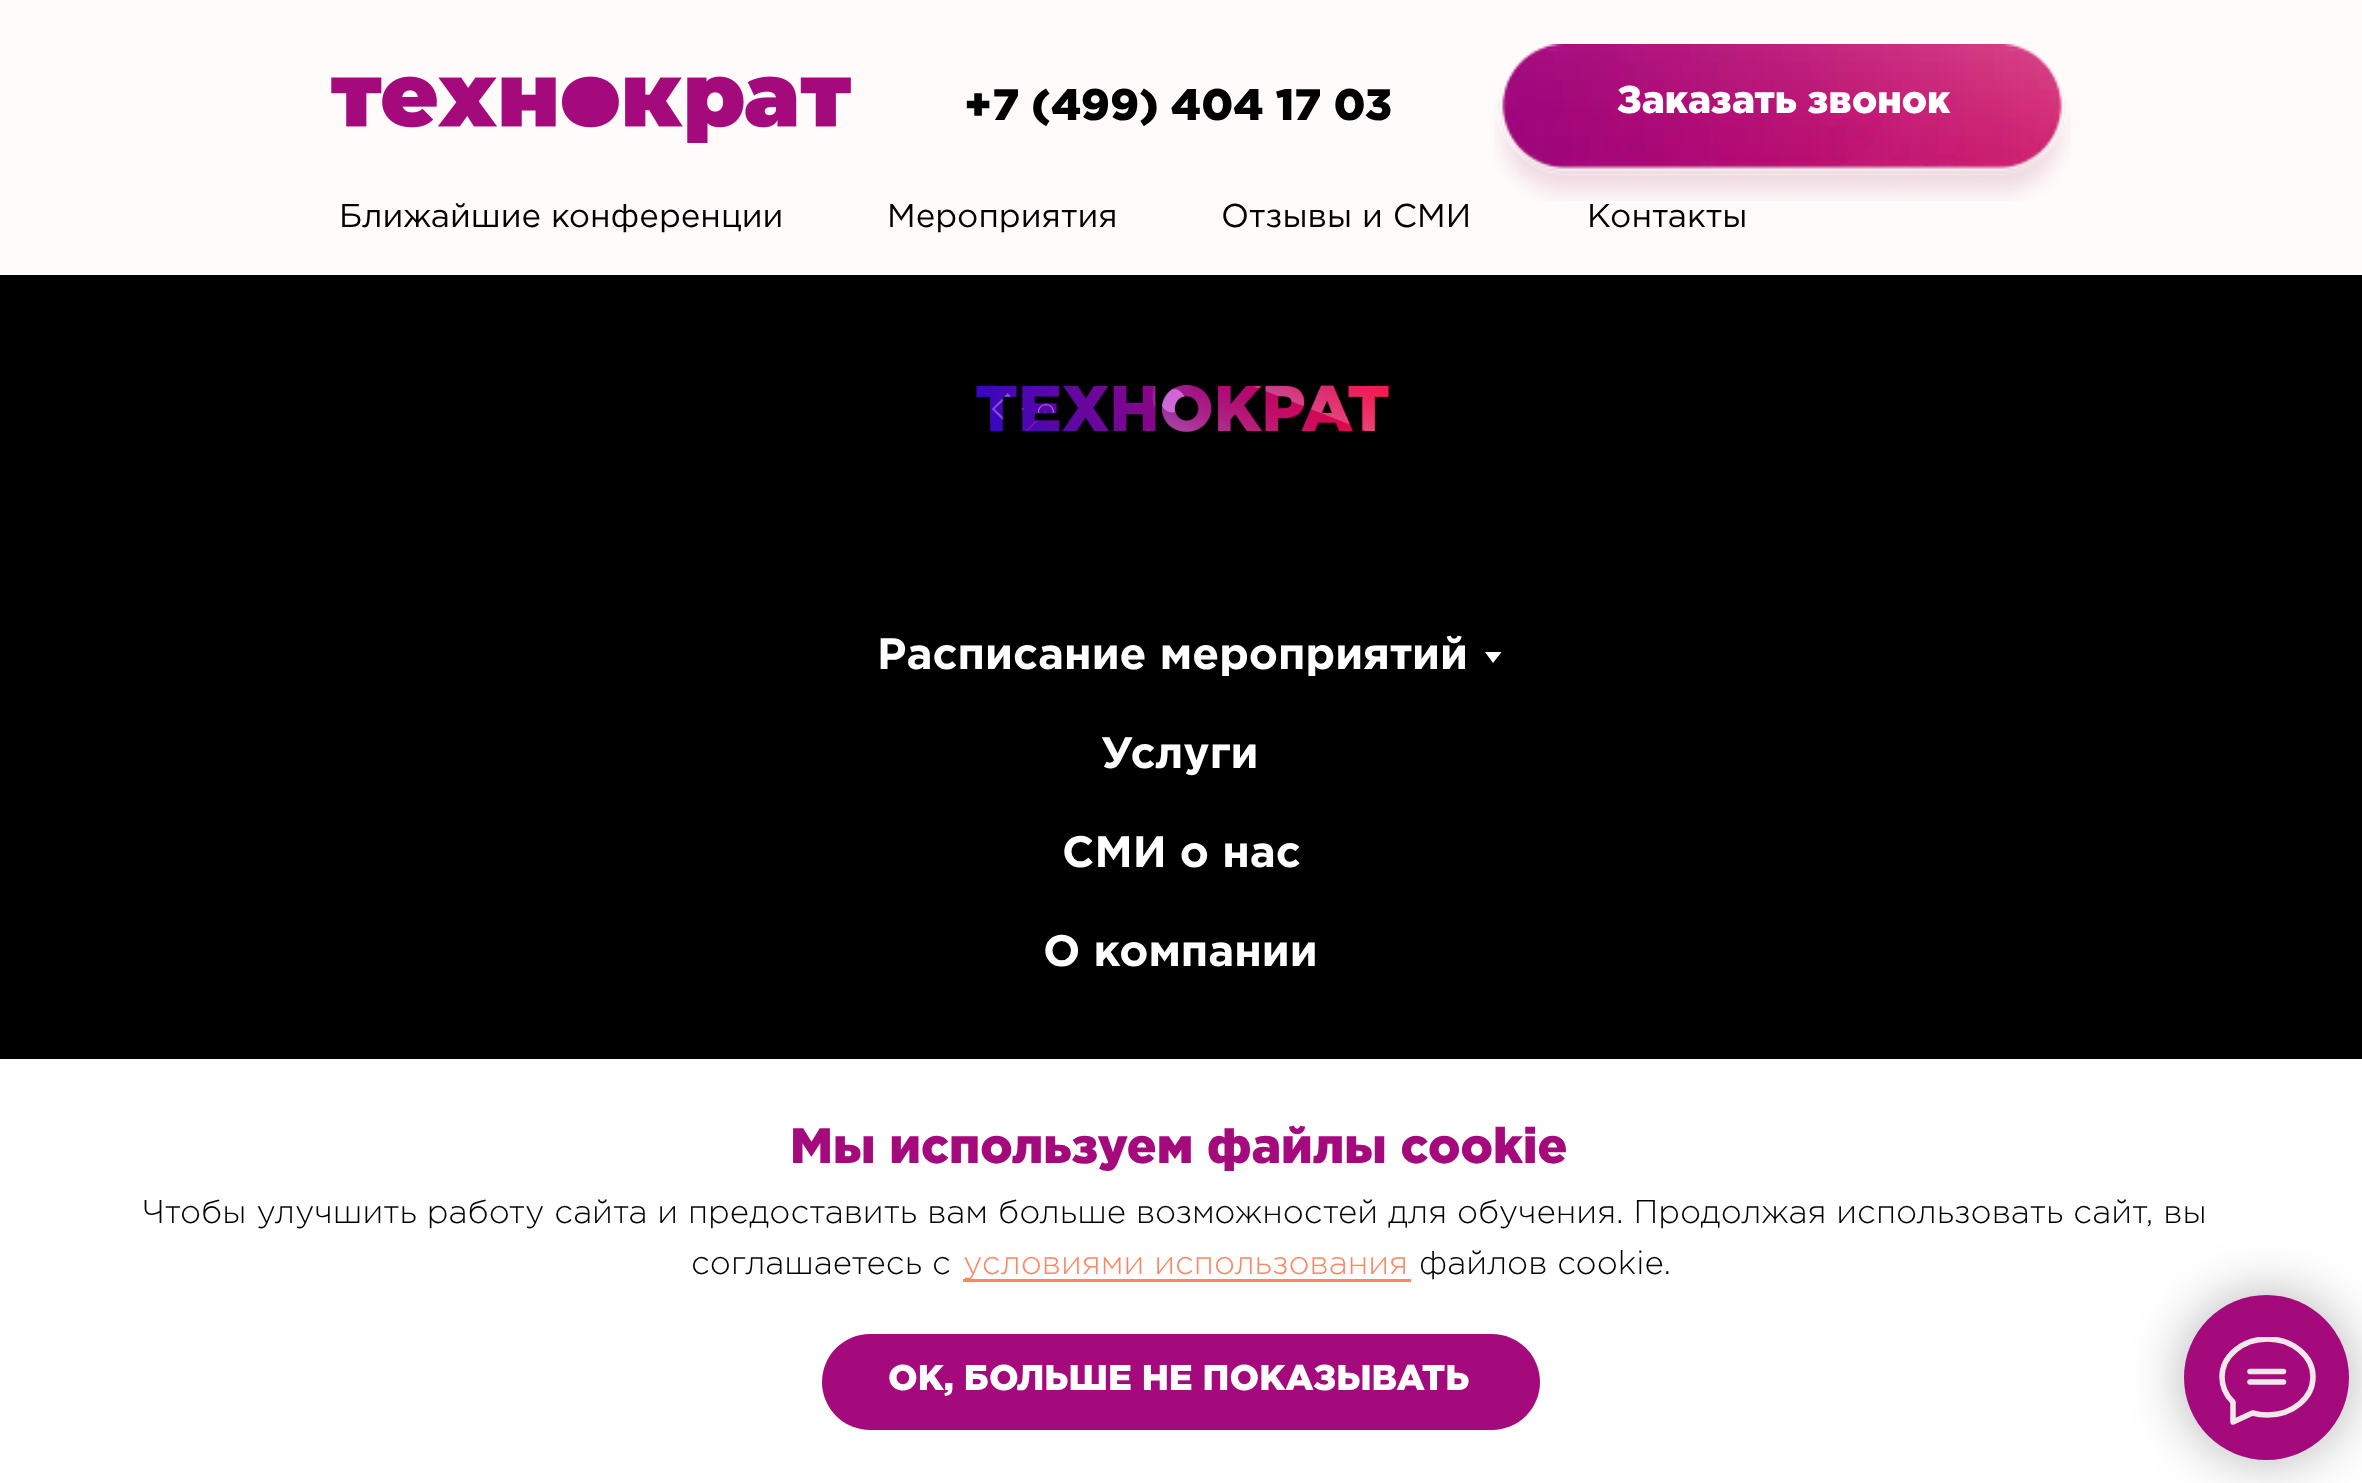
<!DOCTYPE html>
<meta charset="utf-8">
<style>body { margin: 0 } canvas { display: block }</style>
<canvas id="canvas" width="2362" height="1483"></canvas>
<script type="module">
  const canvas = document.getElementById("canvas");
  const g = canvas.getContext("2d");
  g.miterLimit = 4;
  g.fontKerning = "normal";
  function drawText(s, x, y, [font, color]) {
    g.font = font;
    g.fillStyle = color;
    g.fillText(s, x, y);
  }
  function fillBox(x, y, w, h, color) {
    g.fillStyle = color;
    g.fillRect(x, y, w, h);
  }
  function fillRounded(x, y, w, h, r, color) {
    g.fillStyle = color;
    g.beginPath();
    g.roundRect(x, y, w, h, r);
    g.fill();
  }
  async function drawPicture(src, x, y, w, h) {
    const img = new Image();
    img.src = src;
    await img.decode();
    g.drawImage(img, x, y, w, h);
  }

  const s1 = ["900 44px Gotham", "#000000"];
  const s2 = ["900 38.5px Gotham", "#FFFFFF"];
  const s3 = ["33px Gotham", "#000000"];
  const s4 = ["bold 44px Gotham", "#FFFFFF"];
  const s5 = ["900 49.5px Gotham", "#A40A7C"];
  const s6 = ["300 33px Gotham", "#000000"];
  const s7 = ["300 33px Gotham", "#FF8562"];
  const s8 = ["900 35.75px Gotham", "#FFFFFF"];

  fillBox(0, 0, 2362, 1483, "#000000");
  fillBox(0, 0, 2362, 275, "#FFFBFB");
  await drawPicture("pic1.png", 331, 76, 520, 67);
  await drawPicture("pic2.png", 1494, 44, 577, 157);
  drawText("+7 (499) 404 17 03", 964, 120, s1);
  drawText("Заказать звонок", 1617, 113, s2);
  drawText("Ближайшие конференции", 339, 227, s3);
  drawText("Мероприятия", 887, 227, s3);
  drawText("Отзывы и СМИ", 1221, 227, s3);
  drawText("Контакты", 1587, 227, s3);
  await drawPicture("pic3.png", 976, 385, 413, 47);
  drawText("Расписание мероприятий", 877, 669, s4);
  g.beginPath();
  g.moveTo(1485, 652);
  g.lineTo(1501.5, 652);
  g.lineTo(1493, 663);
  g.closePath();
  g.fill();
  drawText("Услуги", 1101, 768, s4);
  drawText("СМИ о нас", 1062, 867, s4);
  drawText("О компании", 1043, 966, s4);
  fillBox(0, 1059, 2362, 424, "#FFFFFF");
  drawText("Мы используем файлы cookie", 790, 1163, s5);
  drawText("Чтобы улучшить работу сайта и предоставить вам больше возможностей для обучения. Продолжая использовать сайт, вы", 142, 1223, s6);
  drawText("соглашаетесь с", 691, 1274, s6);
  fillBox(963, 1279, 448, 3, "#FF8562");
  drawText("условиями использования", 963, 1274, s7);
  drawText("файлов cookie.", 1419, 1274, s6);
  fillRounded(822, 1334, 718, 96, 48, "#A40A7C");
  drawText("ОК, БОЛЬШЕ НЕ ПОКАЗЫВАТЬ", 888, 1390, s8);
  g.fillStyle = "rgba(0, 0, 0, 0.3)";
  g.filter = "blur(27.5px)";
  g.beginPath();
  g.roundRect(2184, 1295, 165, 165, 82.5);
  g.fill();
  g.filter = "none";
  g.fillStyle = "#A40A7C";
  g.beginPath();
  g.arc(2266.5, 1377.5, 82.5, 0, Math.PI * 2);
  g.fill();
  g.save();
  g.beginPath();
  g.rect(2219, 1337, 97, 88);
  g.clip();
  g.beginPath();
  g.moveTo(2250, 1371.5);
  g.lineTo(2283.5, 1371.5);
  g.moveTo(2250, 1382);
  g.lineTo(2283.5, 1382);
  g.moveTo(2232.5, 1401.5);
  g.bezierCurveTo(2226, 1395, 2222, 1386.5, 2222, 1377);
  g.bezierCurveTo(2222, 1356, 2242.5, 1339, 2267.5, 1339);
  g.bezierCurveTo(2292.5, 1339, 2313, 1356, 2313, 1377);
  g.bezierCurveTo(2313, 1398, 2292.5, 1415, 2267.5, 1415);
  g.bezierCurveTo(2262, 1415, 2257.5, 1414.5, 2252.5, 1413);
  g.lineTo(2233, 1422);
  g.lineTo(2233, 1402);
  g.closePath();
  g.strokeStyle = "#F1E9E9";
  g.lineWidth = 5.5;
  g.lineCap = "round";
  g.lineJoin = "round";
  g.stroke();
  g.restore();
</script>
